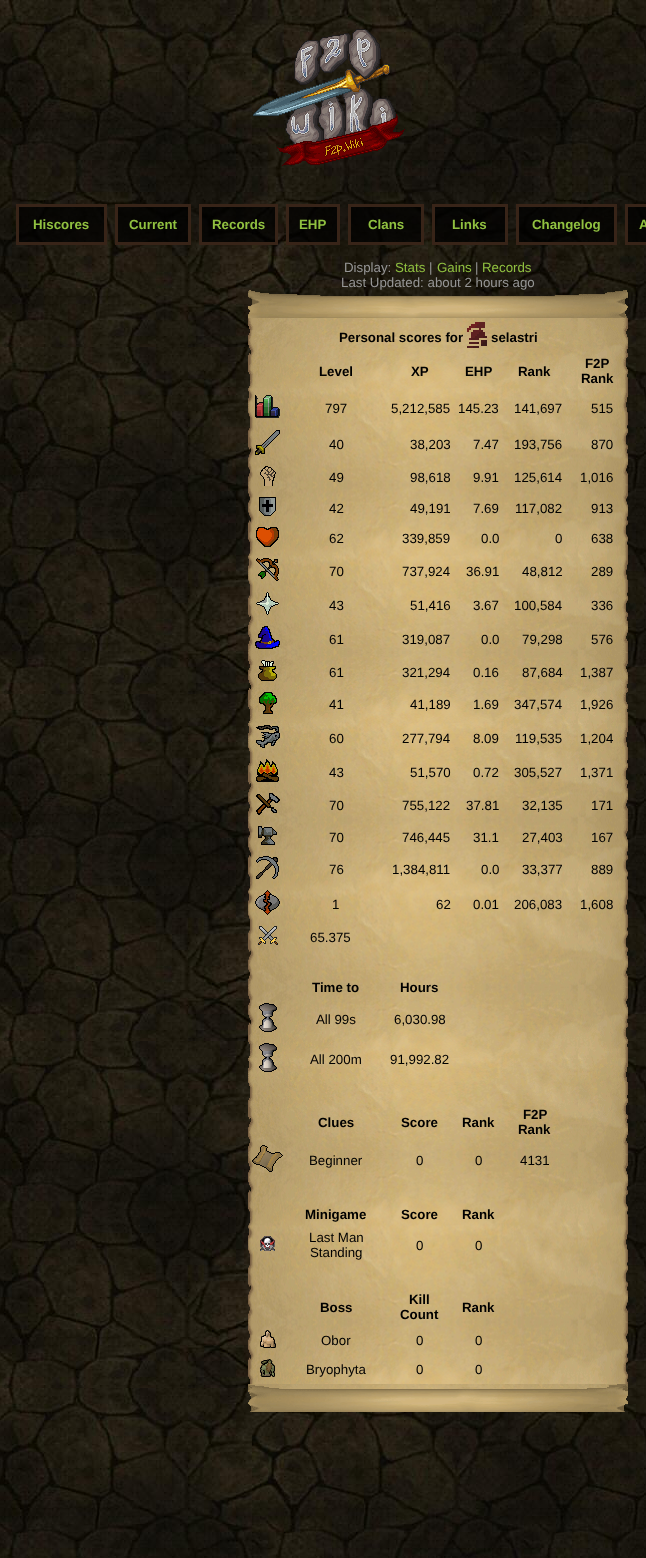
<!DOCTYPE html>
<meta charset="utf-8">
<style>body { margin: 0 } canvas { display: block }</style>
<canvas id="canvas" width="646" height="1558"></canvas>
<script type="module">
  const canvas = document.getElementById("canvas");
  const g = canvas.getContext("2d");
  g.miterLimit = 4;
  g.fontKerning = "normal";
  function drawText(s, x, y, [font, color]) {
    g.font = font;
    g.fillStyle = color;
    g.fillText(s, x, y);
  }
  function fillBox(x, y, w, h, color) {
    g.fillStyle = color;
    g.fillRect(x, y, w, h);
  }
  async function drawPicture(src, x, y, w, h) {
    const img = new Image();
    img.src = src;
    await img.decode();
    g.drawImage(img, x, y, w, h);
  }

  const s1 = ["bold 13.3px Liberation Sans", "#90C040"];
  const s2 = ["13.3px Liberation Sans", "#969696"];
  const s3 = ["13.3px Liberation Sans", "#90C040"];
  const s4 = ["bold 13.3px Liberation Sans", "#000000"];
  const s5 = ["13.3px Liberation Sans", "#000000"];

  fillBox(0, 0, 646, 1558, "#FFFFFF");
  await drawPicture("pic1.png", 0, 0, 646, 1558);
  await drawPicture("pic2.png", 253, 29, 152, 137);
  g.fillStyle = "rgba(0, 0, 0, 0.75)";
  g.beginPath();
  g.rect(17.5, 205.5, 88, 38);
  g.fill();
  g.strokeStyle = "#382418";
  g.lineWidth = 3;
  g.stroke();
  drawText("Hiscores", 33, 229, s1);
  g.fillStyle = "rgba(0, 0, 0, 0.75)";
  g.beginPath();
  g.rect(116.5, 205.5, 73, 38);
  g.fill();
  g.stroke();
  drawText("Current", 129, 229, s1);
  g.fillStyle = "rgba(0, 0, 0, 0.75)";
  g.beginPath();
  g.rect(200.5, 205.5, 76, 38);
  g.fill();
  g.stroke();
  drawText("Records", 212, 229, s1);
  g.fillStyle = "rgba(0, 0, 0, 0.75)";
  g.beginPath();
  g.rect(287.5, 205.5, 51, 38);
  g.fill();
  g.stroke();
  drawText("EHP", 299, 229, s1);
  g.fillStyle = "rgba(0, 0, 0, 0.75)";
  g.beginPath();
  g.rect(349.5, 205.5, 73, 38);
  g.fill();
  g.stroke();
  drawText("Clans", 368, 229, s1);
  g.fillStyle = "rgba(0, 0, 0, 0.75)";
  g.beginPath();
  g.rect(433.5, 205.5, 73, 38);
  g.fill();
  g.stroke();
  drawText("Links", 452, 229, s1);
  g.fillStyle = "rgba(0, 0, 0, 0.75)";
  g.beginPath();
  g.rect(517.5, 205.5, 98, 38);
  g.fill();
  g.stroke();
  drawText("Changelog", 532, 229, s1);
  g.fillStyle = "rgba(0, 0, 0, 0.75)";
  g.beginPath();
  g.rect(626.5, 205.5, 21, 38);
  g.fill();
  g.stroke();
  drawText("A", 639, 229, s1);
  drawText("Display:", 344, 272, s2);
  drawText("Stats", 395, 272, s3);
  drawText("|", 429, 272, s2);
  drawText("Gains", 437, 272, s3);
  drawText("|", 475, 272, s2);
  drawText("Records", 482, 272, s3);
  drawText("Last Updated: about 2 hours ago", 341, 287, s2);
  await drawPicture("pic3.png", 248, 290, 380, 28);
  await drawPicture("pic4.png", 248, 318, 380, 1066);
  drawText("Personal scores for", 339, 342, s4);
  await drawPicture("pic5.png", 467, 322, 20, 26);
  drawText("selastri", 491, 342, s4);
  drawText("Level", 319, 376, s4);
  drawText("XP", 411, 376, s4);
  drawText("EHP", 465, 376, s4);
  drawText("Rank", 518, 376, s4);
  drawText("F2P", 585, 368, s4);
  drawText("Rank", 581, 383, s4);
  await drawPicture("pic6.png", 255, 395, 25, 23);
  drawText("797", 325, 413, s5);
  drawText("5,212,585", 391, 413, s5);
  drawText("145.23", 458, 413, s5);
  drawText("141,697", 514, 413, s5);
  drawText("515", 591, 413, s5);
  await drawPicture("pic7.png", 255, 430, 25, 25);
  drawText("40", 329, 449, s5);
  drawText("38,203", 410, 449, s5);
  drawText("7.47", 473, 449, s5);
  drawText("193,756", 514, 449, s5);
  drawText("870", 591, 449, s5);
  await drawPicture("pic8.png", 260, 466, 16, 20);
  drawText("49", 329, 482, s5);
  drawText("98,618", 410, 482, s5);
  drawText("9.91", 473, 482, s5);
  drawText("125,614", 514, 482, s5);
  drawText("1,016", 580, 482, s5);
  await drawPicture("pic9.png", 259, 497, 17, 19);
  drawText("42", 329, 513, s5);
  drawText("49,191", 410, 513, s5);
  drawText("7.69", 473, 513, s5);
  drawText("117,082", 515, 513, s5);
  drawText("913", 591, 513, s5);
  await drawPicture("pic10.png", 256, 527, 23, 20);
  drawText("62", 329, 543, s5);
  drawText("339,859", 402, 543, s5);
  drawText("0.0", 481, 543, s5);
  drawText("0", 555, 543, s5);
  drawText("638", 591, 543, s5);
  await drawPicture("pic11.png", 256, 558, 23, 23);
  drawText("70", 329, 576, s5);
  drawText("737,924", 402, 576, s5);
  drawText("36.91", 466, 576, s5);
  drawText("48,812", 522, 576, s5);
  drawText("289", 591, 576, s5);
  await drawPicture("pic12.png", 256, 592, 23, 23);
  drawText("43", 329, 610, s5);
  drawText("51,416", 410, 610, s5);
  drawText("3.67", 473, 610, s5);
  drawText("100,584", 514, 610, s5);
  drawText("336", 591, 610, s5);
  await drawPicture("pic13.png", 255, 626, 25, 23);
  drawText("61", 329, 644, s5);
  drawText("319,087", 402, 644, s5);
  drawText("0.0", 481, 644, s5);
  drawText("79,298", 522, 644, s5);
  drawText("576", 591, 644, s5);
  await drawPicture("pic14.png", 258, 660, 19, 21);
  drawText("61", 329, 677, s5);
  drawText("321,294", 402, 677, s5);
  drawText("0.16", 473, 677, s5);
  drawText("87,684", 522, 677, s5);
  drawText("1,387", 580, 677, s5);
  await drawPicture("pic15.png", 259, 692, 18, 22);
  drawText("41", 329, 709, s5);
  drawText("41,189", 410, 709, s5);
  drawText("1.69", 473, 709, s5);
  drawText("347,574", 514, 709, s5);
  drawText("1,926", 580, 709, s5);
  await drawPicture("pic16.png", 256, 725, 24, 23);
  drawText("60", 329, 743, s5);
  drawText("277,794", 402, 743, s5);
  drawText("8.09", 473, 743, s5);
  drawText("119,535", 515, 743, s5);
  drawText("1,204", 580, 743, s5);
  await drawPicture("pic17.png", 256, 759, 23, 23);
  drawText("43", 329, 777, s5);
  drawText("51,570", 410, 777, s5);
  drawText("0.72", 473, 777, s5);
  drawText("305,527", 514, 777, s5);
  drawText("1,371", 580, 777, s5);
  await drawPicture("pic18.png", 256, 793, 24, 22);
  drawText("70", 329, 810, s5);
  drawText("755,122", 402, 810, s5);
  drawText("37.81", 466, 810, s5);
  drawText("32,135", 522, 810, s5);
  drawText("171", 591, 810, s5);
  await drawPicture("pic19.png", 258, 826, 19, 19);
  drawText("70", 329, 842, s5);
  drawText("746,445", 402, 842, s5);
  drawText("31.1", 473, 842, s5);
  drawText("27,403", 522, 842, s5);
  drawText("167", 591, 842, s5);
  await drawPicture("pic20.png", 256, 856, 23, 23);
  drawText("76", 329, 874, s5);
  drawText("1,384,811", 392, 874, s5);
  drawText("0.0", 481, 874, s5);
  drawText("33,377", 522, 874, s5);
  drawText("889", 591, 874, s5);
  await drawPicture("pic21.png", 255, 890, 25, 25);
  drawText("1", 332, 909, s5);
  drawText("62", 436, 909, s5);
  drawText("0.01", 473, 909, s5);
  drawText("206,083", 514, 909, s5);
  drawText("1,608", 580, 909, s5);
  await drawPicture("pic22.png", 258, 926, 20, 19);
  drawText("65.375", 310, 942, s5);
  drawText("Time to", 312, 992, s4);
  drawText("Hours", 400, 992, s4);
  await drawPicture("pic23.png", 259, 1003, 18, 29);
  drawText("All 99s", 316, 1024, s5);
  drawText("6,030.98", 394, 1024, s5);
  await drawPicture("pic24.png", 259, 1043, 18, 29);
  drawText("All 200m", 310, 1064, s5);
  drawText("91,992.82", 390, 1064, s5);
  drawText("Clues", 318, 1127, s4);
  drawText("Score", 401, 1127, s4);
  drawText("Rank", 462, 1127, s4);
  drawText("F2P", 523, 1119, s4);
  drawText("Rank", 518, 1134, s4);
  await drawPicture("pic25.png", 252, 1145, 31, 27);
  drawText("Beginner", 309, 1165, s5);
  drawText("0", 416, 1165, s5);
  drawText("0", 475, 1165, s5);
  drawText("4131", 520, 1165, s5);
  drawText("Minigame", 305, 1219, s4);
  drawText("Score", 401, 1219, s4);
  drawText("Rank", 462, 1219, s4);
  await drawPicture("pic26.png", 260, 1236, 15, 15);
  drawText("Last Man", 309, 1242, s5);
  drawText("Standing", 310, 1257, s5);
  drawText("0", 416, 1250, s5);
  drawText("0", 475, 1250, s5);
  drawText("Boss", 320, 1312, s4);
  drawText("Kill", 409, 1304, s4);
  drawText("Count", 400, 1319, s4);
  drawText("Rank", 462, 1312, s4);
  await drawPicture("pic27.png", 260, 1330, 16, 18);
  drawText("Obor", 321, 1345, s5);
  drawText("0", 416, 1345, s5);
  drawText("0", 475, 1345, s5);
  await drawPicture("pic28.png", 260, 1359, 15, 18);
  drawText("Bryophyta", 306, 1374, s5);
  drawText("0", 416, 1374, s5);
  drawText("0", 475, 1374, s5);
  await drawPicture("pic29.png", 248, 1384, 380, 28);
</script>
